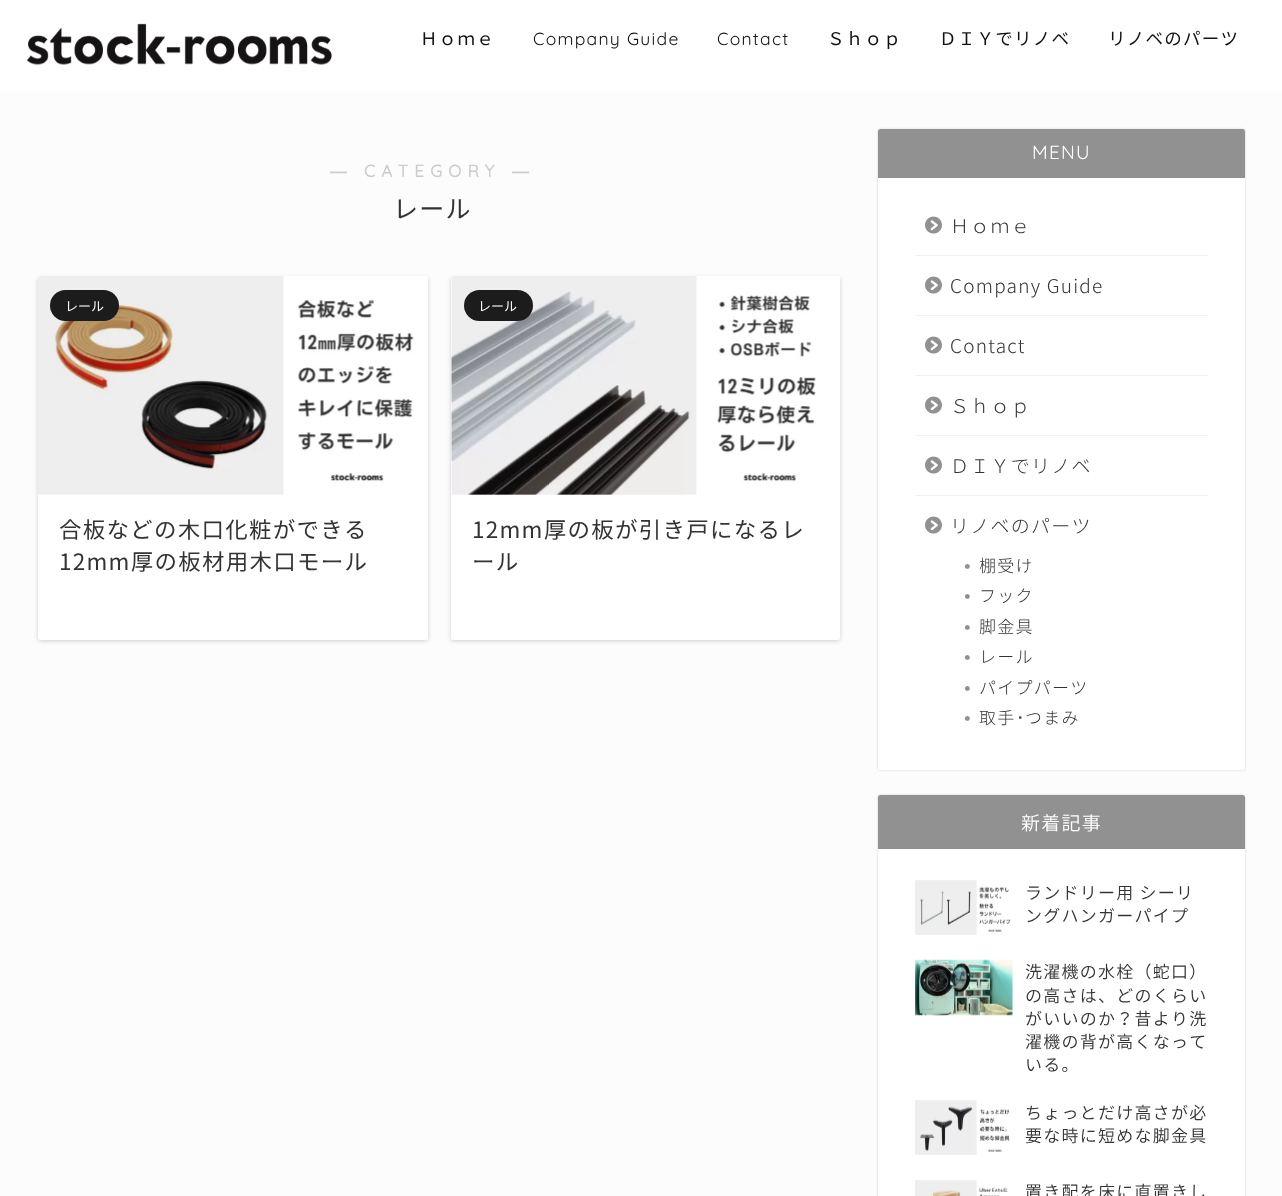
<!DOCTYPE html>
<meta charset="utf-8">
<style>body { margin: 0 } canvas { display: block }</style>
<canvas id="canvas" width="1282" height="1196"></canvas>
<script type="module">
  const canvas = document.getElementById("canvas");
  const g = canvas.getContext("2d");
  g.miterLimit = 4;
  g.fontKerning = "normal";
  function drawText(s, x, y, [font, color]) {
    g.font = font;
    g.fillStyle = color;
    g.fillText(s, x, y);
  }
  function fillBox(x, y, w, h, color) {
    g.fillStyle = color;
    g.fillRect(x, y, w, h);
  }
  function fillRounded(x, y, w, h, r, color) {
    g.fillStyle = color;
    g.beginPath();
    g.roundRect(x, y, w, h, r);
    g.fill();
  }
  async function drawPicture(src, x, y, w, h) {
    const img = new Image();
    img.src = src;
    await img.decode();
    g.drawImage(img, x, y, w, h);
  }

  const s1 = ["17.5px Noto Sans JP", "#111111"];
  const s2 = ["300 17.5px Quicksand", "#111111"];
  const s3 = ["bold 17px Liberation Sans", "#CCCCCC"];
  const s4 = ["bold 17px Quicksand", "#CCCCCC"];
  const s5 = ["25px Noto Sans JP", "#333333"];
  const s6 = ["13px Noto Sans JP", "#FFFFFF"];
  const s7 = ["22.5px Noto Sans JP", "#333333"];
  const s8 = ["300 19px Quicksand", "#FFFFFF"];
  const s9 = ["300 19px 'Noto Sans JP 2'", "#333333"];
  const s10 = ["500 30px WenQuanYi Zen Hei", "#919191"];
  const s11 = ["300 17px 'Noto Sans JP 2'", "#333333"];
  const s12 = ["17px IPAPGothic", "#333333"];
  const s13 = ["300 19px Noto Sans JP", "#FFFFFF"];
  const s14 = ["300 17px Noto Sans JP", "#333333"];

  fillBox(0, 0, 1282, 1196, "#FCFCFC");
  fillBox(0, 0, 1282, 91, "#FFFFFF");
  await drawPicture("pic1.png", 26, 23, 306, 42);
  g.letterSpacing = "1.25px";
  drawText("Ｈｏｍｅ", 420, 45, s1);
  drawText("Company Guide", 533, 45, s2);
  drawText("Contact", 717, 45, s2);
  drawText("Ｓｈｏｐ", 827, 45, s1);
  drawText("ＤＩＹでリノベ", 939, 45, s1);
  drawText("リノベのパーツ", 1108, 45, s1);
  g.letterSpacing = "6.25px";
  drawText("―", 330, 177, s3);
  drawText("CATEGORY", 364, 177, s4);
  drawText("―", 512, 177, s3);
  g.letterSpacing = "1.25px";
  drawText("レール", 393, 218, s5);
  g.fillStyle = "rgba(0, 0, 0, 0.18)";
  g.filter = "blur(2px)";
  g.beginPath();
  g.roundRect(38, 278, 390, 363, 2.5);
  g.fill();
  g.filter = "none";
  fillRounded(38, 276, 390, 364, 2.5, "#FFFFFF");
  await drawPicture("pic2.png", 38, 276, 376, 219);
  fillRounded(50, 290, 69, 31, 15.5, "#1C1C1C");
  g.letterSpacing = "0px";
  drawText("レール", 65, 311, s6);
  g.letterSpacing = "1.25px";
  drawText("合板などの木口化粧ができる", 59, 538, s7);
  drawText("12mm厚の板材用木口モール", 59, 570, s7);
  g.fillStyle = "rgba(0, 0, 0, 0.18)";
  g.filter = "blur(2px)";
  g.beginPath();
  g.roundRect(451, 278, 389, 363, 2.5);
  g.fill();
  g.filter = "none";
  fillRounded(451, 276, 389, 364, 2.5, "#FFFFFF");
  await drawPicture("pic3.png", 451, 276, 365, 219);
  fillRounded(464, 290, 69, 31, 15.5, "#1C1C1C");
  g.letterSpacing = "0px";
  drawText("レール", 478, 311, s6);
  g.letterSpacing = "1.25px";
  drawText("12mm厚の板が引き戸になるレ", 472, 538, s7);
  drawText("ール", 472, 570, s7);
  g.fillStyle = "rgba(0, 0, 0, 0.18)";
  g.filter = "blur(1px)";
  g.beginPath();
  g.roundRect(878, 129, 367, 641, 2.5);
  g.fill();
  g.filter = "none";
  fillRounded(878, 129, 367, 641, 2.5, "#FFFFFF");
  g.fillStyle = "#919191";
  g.beginPath();
  g.roundRect(878, 129, 367, 49, [2.5, 2.5, 0, 0]);
  g.fill();
  drawText("MENU", 1032, 159, s8);
  fillBox(915, 255, 293, 1, "#F2F2F2");
  await drawPicture("pic4.png", 925, 216, 17, 18);
  drawText("Ｈｏｍｅ", 950, 233, s9);
  fillBox(915, 315, 293, 1, "#F2F2F2");
  await drawPicture("pic4.png", 925, 276, 17, 18);
  drawText("Company Guide", 950, 293, s9);
  fillBox(915, 375, 293, 1, "#F2F2F2");
  await drawPicture("pic4.png", 925, 336, 17, 18);
  drawText("Contact", 950, 353, s9);
  fillBox(915, 435, 293, 1, "#F2F2F2");
  await drawPicture("pic4.png", 925, 396, 17, 18);
  drawText("Ｓｈｏｐ", 950, 413, s9);
  fillBox(915, 495, 293, 1, "#F2F2F2");
  await drawPicture("pic4.png", 925, 456, 17, 18);
  drawText("ＤＩＹでリノベ", 950, 473, s9);
  await drawPicture("pic4.png", 925, 516, 17, 18);
  drawText("リノベのパーツ", 950, 533, s9);
  drawText("・", 952, 577, s10);
  drawText("棚受け", 979, 572, s11);
  drawText("・", 952, 607, s10);
  drawText("フック", 979, 602, s11);
  drawText("・", 952, 638, s10);
  drawText("脚金具", 979, 633, s11);
  drawText("・", 952, 668, s10);
  drawText("レール", 979, 663, s11);
  drawText("・", 952, 699, s10);
  drawText("パイプパーツ", 979, 694, s11);
  drawText("・", 952, 729, s10);
  drawText("取手", 979, 724, s11);
  drawText("･", 1016, 724, s12);
  drawText("つまみ", 1025, 724, s11);
  g.fillStyle = "rgba(0, 0, 0, 0.18)";
  g.filter = "blur(1px)";
  g.beginPath();
  g.roundRect(878, 795, 367, 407, 2.5);
  g.fill();
  g.filter = "none";
  fillRounded(878, 795, 367, 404, 2.5, "#FFFFFF");
  g.fillStyle = "#919191";
  g.beginPath();
  g.roundRect(878, 795, 367, 54, [2.5, 2.5, 0, 0]);
  g.fill();
  drawText("新着記事", 1021, 830, s13);
  await drawPicture("pic5.png", 915, 880, 96, 55);
  drawText("ランドリー用 シーリ", 1025, 899, s14);
  drawText("ングハンガーパイプ", 1025, 922, s14);
  await drawPicture("pic6.png", 915, 959, 98, 57);
  drawText("洗濯機の水栓（蛇口）", 1025, 978, s14);
  drawText("の高さは、どのくらい", 1025, 1002, s14);
  drawText("がいいのか？昔より洗", 1025, 1025, s14);
  drawText("濯機の背が高くなって", 1025, 1048, s14);
  drawText("いる。", 1025, 1071, s14);
  await drawPicture("pic7.png", 915, 1100, 95, 55);
  drawText("ちょっとだけ高さが必", 1025, 1119, s14);
  drawText("要な時に短めな脚金具", 1025, 1142, s14);
  await drawPicture("pic8.png", 915, 1180, 93, 16);
  drawText("置き配を床に直置きし", 1025, 1198, s14);
</script>
